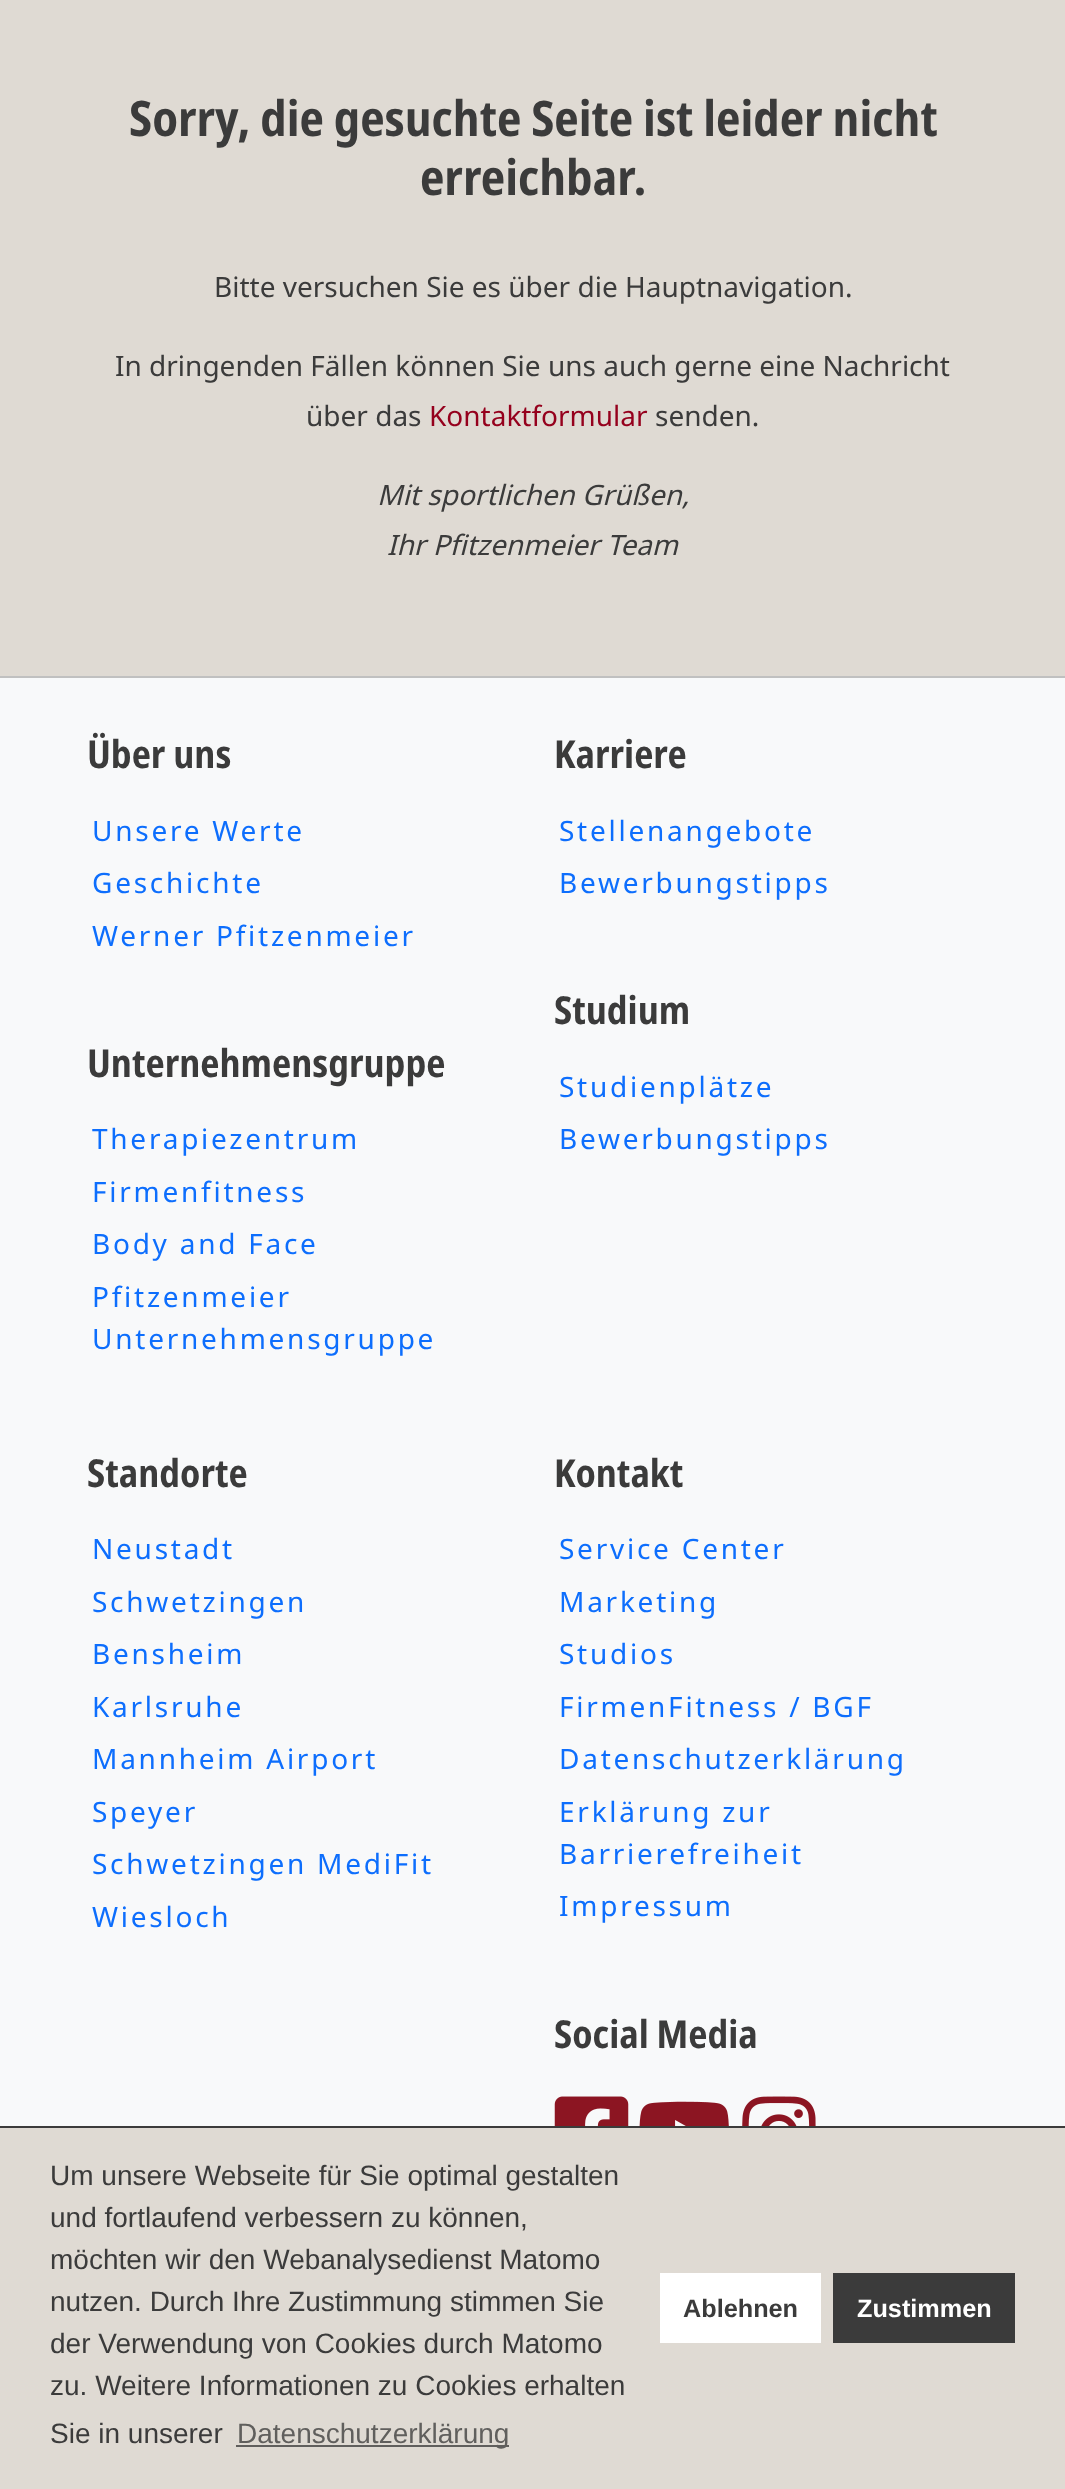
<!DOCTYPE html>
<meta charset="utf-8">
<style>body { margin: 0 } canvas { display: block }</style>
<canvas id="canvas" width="1065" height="2489"></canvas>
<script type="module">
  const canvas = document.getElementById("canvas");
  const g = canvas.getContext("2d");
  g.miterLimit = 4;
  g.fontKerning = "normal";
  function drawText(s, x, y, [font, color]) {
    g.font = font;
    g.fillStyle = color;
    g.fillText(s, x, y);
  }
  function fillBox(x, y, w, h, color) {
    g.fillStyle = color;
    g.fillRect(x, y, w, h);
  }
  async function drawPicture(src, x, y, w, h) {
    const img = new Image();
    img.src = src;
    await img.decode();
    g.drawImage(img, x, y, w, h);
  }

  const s1 = ["bold 49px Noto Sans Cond", "#3B3B3B"];
  const s2 = ["28px Noto Sans", "#3B3B3B"];
  const s3 = ["28px Noto Sans", "#95001D"];
  const s4 = ["italic 28px Noto Sans", "#3B3B3B"];
  const s5 = ["bold 38.5px Noto Sans Cond", "#3B3B3B"];
  const s6 = ["28px Noto Sans", "#0D6EFD"];
  const s7 = ["28px Liberation Sans", "#3B3B3B"];
  const s8 = ["28px Liberation Sans", "#605F5D"];
  const s9 = ["bold 25.25px Liberation Sans", "#3B3B3B"];
  const s10 = ["bold 25.25px Liberation Sans", "#FFFFFF"];

  fillBox(0, 0, 1065, 2489, "#DFDAD3");
  drawText("Sorry, die gesuchte Seite ist leider nicht", 129, 136, s1);
  drawText("erreichbar.", 420, 195, s1);
  drawText("Bitte versuchen Sie es über die Hauptnavigation.", 214, 297, s2);
  drawText("In dringenden Fällen können Sie uns auch gerne eine Nachricht", 115, 376, s2);
  drawText("über das", 306, 426, s2);
  drawText("Kontaktformular", 429, 426, s3);
  drawText("senden.", 655, 426, s2);
  drawText("Mit sportlichen Grüßen,", 377, 505, s4);
  drawText("Ihr Pfitzenmeier Team", 387, 555, s4);
  fillBox(0, 678, 1065, 1448, "#F8F9FA");
  fillBox(0, 676, 1065, 2, "#C0C0C0");
  drawText("Über uns", 87, 768, s5);
  g.letterSpacing = "2.75px";
  drawText("Unsere Werte", 92, 841, s6);
  drawText("Geschichte", 92, 893, s6);
  drawText("Werner Pfitzenmeier", 92, 946, s6);
  g.letterSpacing = "0px";
  drawText("Unternehmensgruppe", 87, 1077, s5);
  g.letterSpacing = "2.75px";
  drawText("Therapiezentrum", 92, 1149, s6);
  drawText("Firmenfitness", 92, 1202, s6);
  drawText("Body and Face", 92, 1254, s6);
  drawText("Pfitzenmeier", 92, 1307, s6);
  drawText("Unternehmensgruppe", 92, 1349, s6);
  g.letterSpacing = "0px";
  drawText("Karriere", 554, 768, s5);
  g.letterSpacing = "2.75px";
  drawText("Stellenangebote", 559, 841, s6);
  drawText("Bewerbungstipps", 559, 893, s6);
  g.letterSpacing = "0px";
  drawText("Studium", 554, 1024, s5);
  g.letterSpacing = "2.75px";
  drawText("Studienplätze", 559, 1097, s6);
  drawText("Bewerbungstipps", 559, 1149, s6);
  g.letterSpacing = "0px";
  drawText("Standorte", 87, 1487, s5);
  g.letterSpacing = "2.75px";
  drawText("Neustadt", 92, 1559, s6);
  drawText("Schwetzingen", 92, 1612, s6);
  drawText("Bensheim", 92, 1664, s6);
  drawText("Karlsruhe", 92, 1717, s6);
  drawText("Mannheim Airport", 92, 1769, s6);
  drawText("Speyer", 92, 1822, s6);
  drawText("Schwetzingen MediFit", 92, 1874, s6);
  drawText("Wiesloch", 92, 1927, s6);
  g.letterSpacing = "0px";
  drawText("Kontakt", 554, 1487, s5);
  g.letterSpacing = "2.75px";
  drawText("Service Center", 559, 1559, s6);
  drawText("Marketing", 559, 1612, s6);
  drawText("Studios", 559, 1664, s6);
  drawText("FirmenFitness / BGF", 559, 1717, s6);
  drawText("Datenschutzerklärung", 559, 1769, s6);
  drawText("Erklärung zur", 559, 1822, s6);
  drawText("Barrierefreiheit", 559, 1864, s6);
  drawText("Impressum", 559, 1916, s6);
  g.letterSpacing = "0px";
  drawText("Social Media", 554, 2048, s5);
  await drawPicture("pic1.png", 554, 2096, 75, 30);
  await drawPicture("pic2.png", 639, 2101, 90, 25);
  await drawPicture("pic3.png", 742, 2096, 74, 30);
  fillBox(0, 2126, 1065, 2, "#3B3B3B");
  drawText("Um unsere Webseite für Sie optimal gestalten", 50, 2185, s7);
  drawText("und fortlaufend verbessern zu können,", 50, 2227, s7);
  drawText("möchten wir den Webanalysedienst Matomo", 50, 2269, s7);
  drawText("nutzen. Durch Ihre Zustimmung stimmen Sie", 50, 2311, s7);
  drawText("der Verwendung von Cookies durch Matomo", 50, 2353, s7);
  drawText("zu. Weitere Informationen zu Cookies erhalten", 50, 2395, s7);
  drawText("Sie in unserer", 50, 2443, s7);
  fillBox(236, 2445, 273, 2, "#605F5D");
  drawText("Datenschutzerklärung", 237, 2443, s8);
  fillBox(660, 2273, 161, 70, "#FFFFFF");
  drawText("Ablehnen", 683, 2317, s9);
  fillBox(833, 2273, 182, 70, "#3B3B3B");
  drawText("Zustimmen", 857, 2317, s10);
</script>
